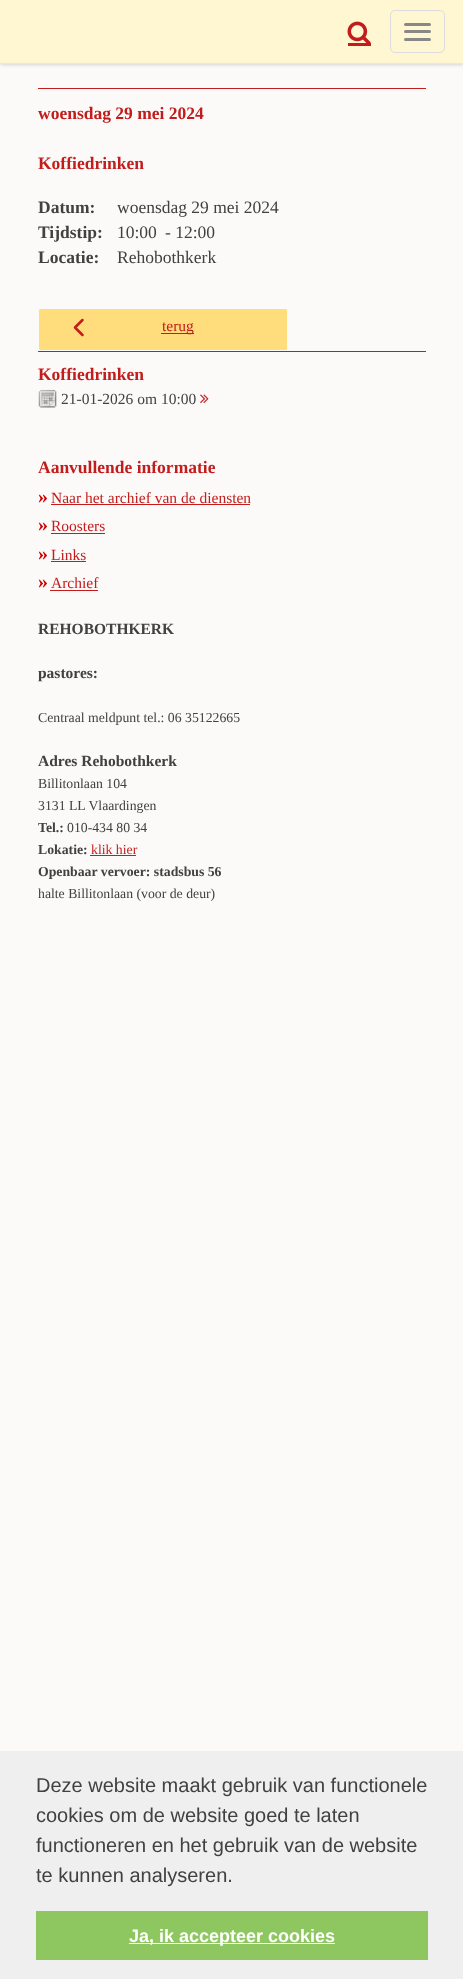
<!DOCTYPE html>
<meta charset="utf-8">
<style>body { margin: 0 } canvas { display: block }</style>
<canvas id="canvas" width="463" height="1979"></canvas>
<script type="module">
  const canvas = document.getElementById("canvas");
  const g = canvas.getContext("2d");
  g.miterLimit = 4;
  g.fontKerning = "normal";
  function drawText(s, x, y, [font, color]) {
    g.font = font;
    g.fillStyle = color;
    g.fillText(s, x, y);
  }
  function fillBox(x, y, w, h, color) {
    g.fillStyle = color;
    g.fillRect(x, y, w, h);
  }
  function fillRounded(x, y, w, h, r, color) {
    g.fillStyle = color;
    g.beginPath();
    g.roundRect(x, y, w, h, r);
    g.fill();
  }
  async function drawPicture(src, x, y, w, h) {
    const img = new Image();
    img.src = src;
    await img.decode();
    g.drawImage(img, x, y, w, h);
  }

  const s1 = ["bold 17.5px Liberation Serif", "#C21D1C"];
  const s2 = ["bold 17.5px Liberation Serif", "#414141"];
  const s3 = ["17.5px Liberation Serif", "#414141"];
  const s4 = ["15.5px Liberation Serif", "#C21D1C"];
  const s5 = ["15.5px Liberation Serif", "#414141"];
  const s6 = ["bold 20px Liberation Serif", "#CC0000"];
  const s7 = ["bold 15.5px Liberation Serif", "#414141"];
  const s8 = ["13.75px Liberation Serif", "#414141"];
  const s9 = ["bold 13.75px Liberation Serif", "#414141"];
  const s10 = ["13.75px Liberation Serif", "#C21D1C"];
  const s11 = ["20px Liberation Sans", "#414141"];
  const s12 = ["bold 18px Liberation Sans", "#FFFFFF"];

  fillBox(0, 0, 463, 1979, "#FCF9F9");
  g.fillStyle = "rgba(0, 0, 0, 0.22)";
  g.filter = "blur(2px)";
  g.beginPath();
  g.rect(0, 0, 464, 64);
  g.fill();
  g.filter = "none";
  fillBox(0, 0, 463, 63, "#FFF6D2");
  fillBox(0, 63, 463, 1, "#E7E7E7");
  await drawPicture("pic1.png", 347, 21, 24, 22);
  fillBox(348, 43, 23, 3, "#C21D1C");
  g.beginPath();
  g.roundRect(390.5, 10.5, 54, 42, 4.5);
  g.strokeStyle = "#DDDDDD";
  g.stroke();
  fillRounded(404, 23, 27, 3, 1.5, "#888888");
  fillRounded(404, 30, 27, 3, 1.5, "#888888");
  fillRounded(404, 38, 27, 3, 1.5, "#888888");
  fillBox(38, 88, 388, 1, "#C21D1C");
  drawText("woensdag 29 mei 2024", 38, 119, s1);
  drawText("Koffiedrinken", 38, 169, s1);
  drawText("Datum:", 38, 213, s2);
  drawText("woensdag 29 mei 2024", 117, 213, s3);
  drawText("Tijdstip:", 38, 238, s2);
  drawText("10:00", 117, 238, s3);
  drawText("- 12:00", 165, 238, s3);
  drawText("Locatie:", 38, 263, s2);
  drawText("Rehobothkerk", 117, 263, s3);
  g.fillStyle = "#FFDC7C";
  g.beginPath();
  g.roundRect(38.5, 308.5, 249, 42, 2);
  g.fill();
  g.strokeStyle = "#FCF9F9";
  g.stroke();
  g.beginPath();
  g.moveTo(82.5, 335);
  g.lineTo(75, 327.5);
  g.lineTo(82.5, 320);
  g.strokeStyle = "#C21D1C";
  g.lineWidth = 2.5;
  g.lineCap = "round";
  g.lineJoin = "round";
  g.stroke();
  fillBox(161, 333, 33, 1, "#C21D1C");
  drawText("terug", 162, 331, s4);
  fillBox(38, 351, 388, 1, "#C21D1C");
  drawText("Koffiedrinken", 38, 380, s1);
  await drawPicture("pic2.png", 38, 389, 19, 19);
  drawText("21-01-2026 om 10:00", 61, 404, s5);
  await drawPicture("pic3.png", 200, 394, 9, 9);
  drawText("Aanvullende informatie", 38, 473, s1);
  drawText("»", 38, 503, s6);
  drawText("Naar het archief van de diensten", 51, 503, s4);
  fillBox(51, 504, 199, 1, "#C21D1C");
  drawText("»", 38, 531, s6);
  drawText("Roosters", 51, 531, s4);
  fillBox(51, 533, 54, 1, "#C21D1C");
  drawText("»", 38, 560, s6);
  drawText("Links", 51, 560, s4);
  fillBox(51, 561, 35, 1, "#C21D1C");
  drawText("»", 38, 588, s6);
  drawText("Archief", 51, 588, s4);
  fillBox(50, 590, 48, 1, "#C21D1C");
  drawText("REHOBOTHKERK", 38, 634, s7);
  drawText("pastores:", 38, 678, s7);
  drawText("Centraal meldpunt tel.: 06 35122665", 38, 722, s8);
  drawText("Adres Rehobothkerk", 38, 766, s7);
  drawText("Billitonlaan 104", 38, 788, s8);
  drawText("3131 LL Vlaardingen", 38, 810, s8);
  drawText("Tel.:", 38, 832, s9);
  drawText("010-434 80 34", 67, 832, s8);
  drawText("Lokatie:", 38, 854, s9);
  drawText("klik hier", 91, 854, s10);
  fillBox(90, 855, 46, 1, "#C21D1C");
  drawText("Openbaar vervoer: stadsbus 56", 38, 876, s9);
  drawText("halte Billitonlaan (voor de deur)", 38, 898, s8);
  fillBox(0, 1751, 463, 228, "#EFEFEF");
  drawText("Deze website maakt gebruik van functionele", 36, 1792, s11);
  drawText("cookies om de website goed te laten", 36, 1822, s11);
  drawText("functioneren en het gebruik van de website", 36, 1852, s11);
  drawText("te kunnen analyseren.", 36, 1882, s11);
  fillBox(36, 1911, 392, 49, "#8EC760");
  fillBox(129, 1943, 206, 1, "#FFFFFF");
  drawText("Ja, ik accepteer cookies", 129, 1942, s12);
</script>
